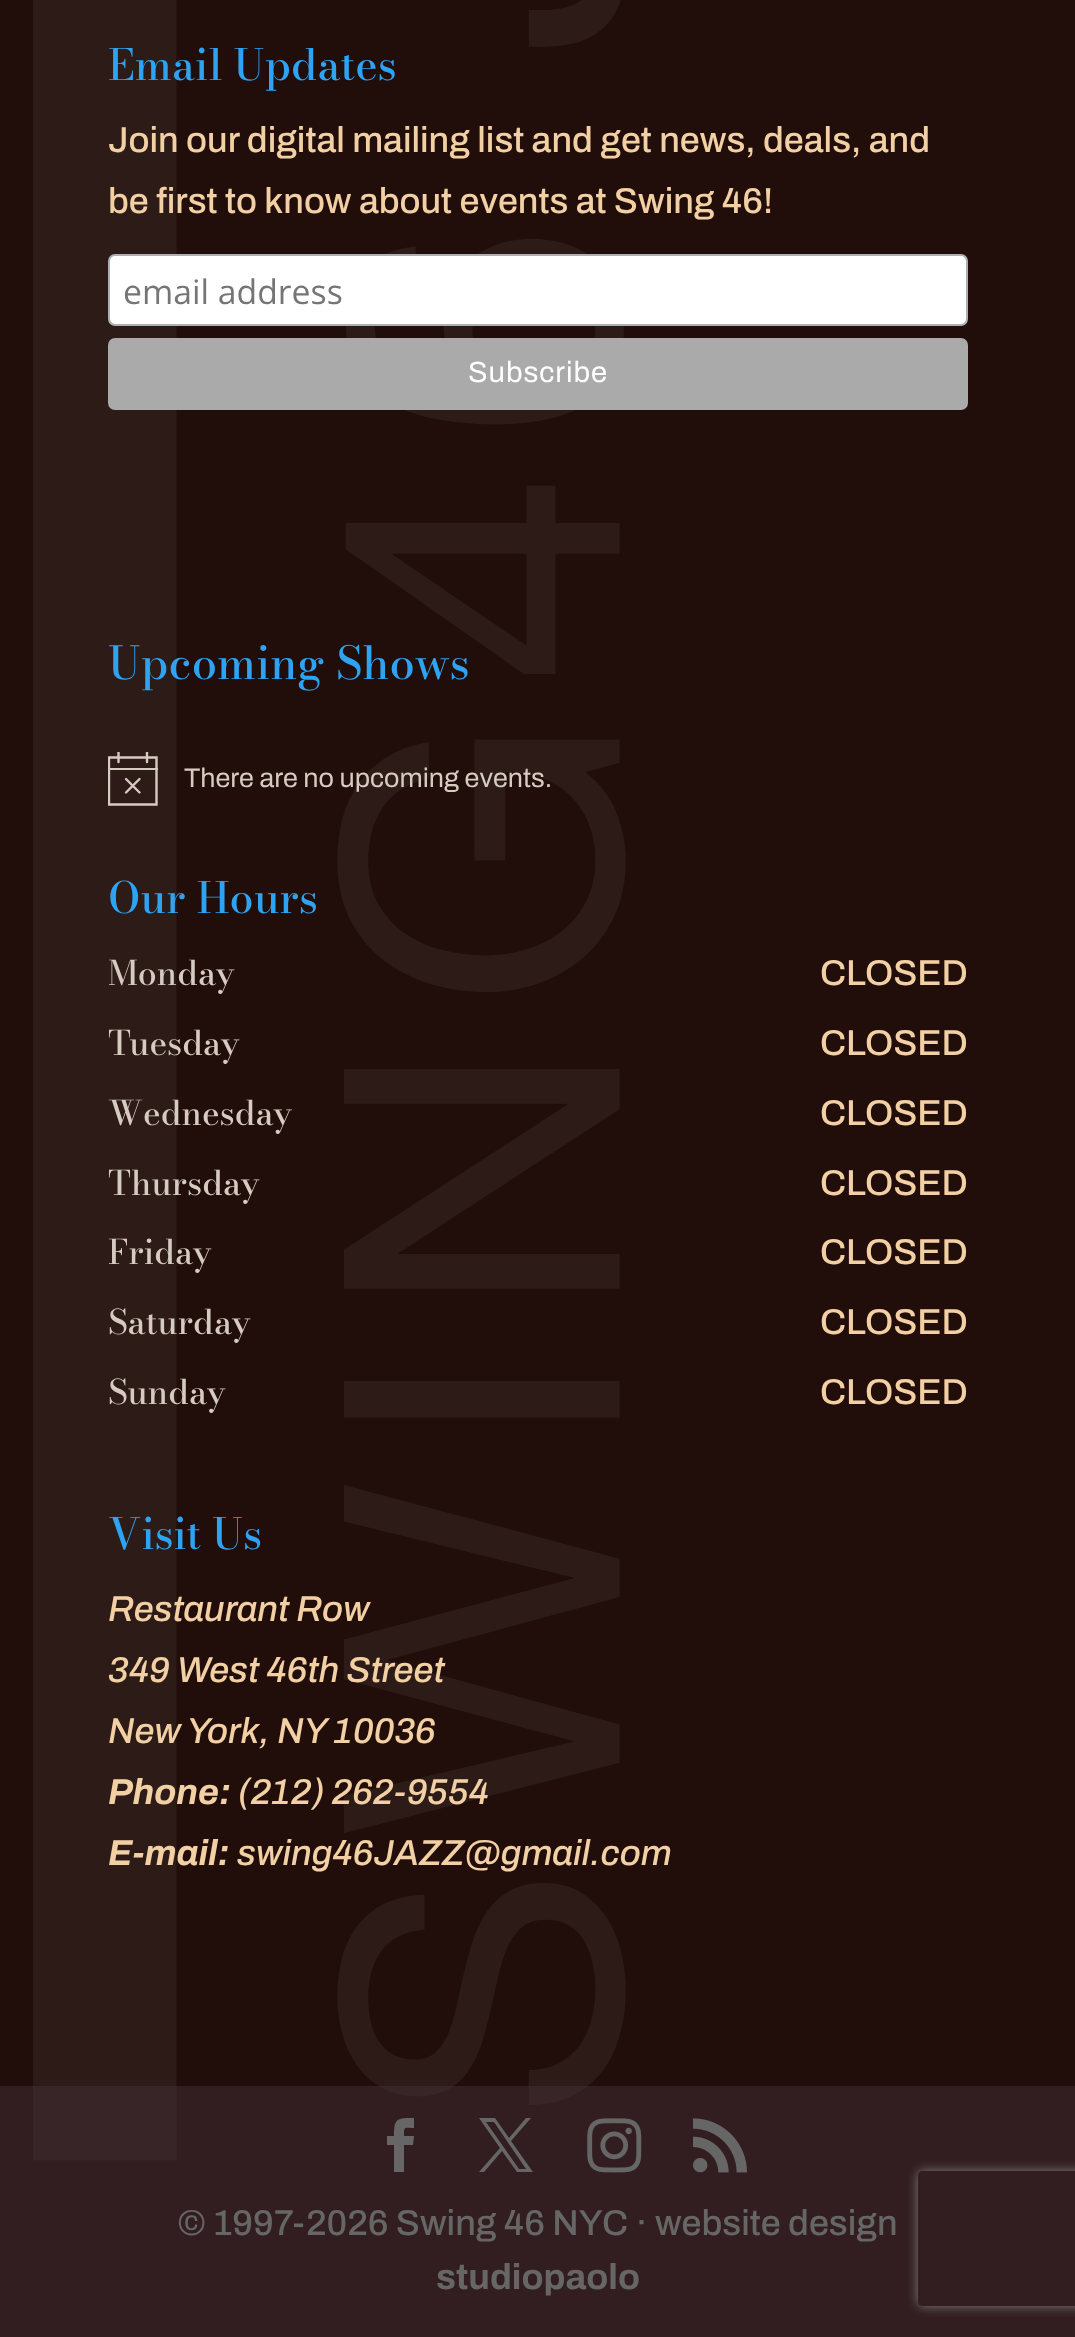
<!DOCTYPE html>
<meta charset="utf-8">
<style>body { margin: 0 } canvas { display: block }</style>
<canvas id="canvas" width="1075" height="2337"></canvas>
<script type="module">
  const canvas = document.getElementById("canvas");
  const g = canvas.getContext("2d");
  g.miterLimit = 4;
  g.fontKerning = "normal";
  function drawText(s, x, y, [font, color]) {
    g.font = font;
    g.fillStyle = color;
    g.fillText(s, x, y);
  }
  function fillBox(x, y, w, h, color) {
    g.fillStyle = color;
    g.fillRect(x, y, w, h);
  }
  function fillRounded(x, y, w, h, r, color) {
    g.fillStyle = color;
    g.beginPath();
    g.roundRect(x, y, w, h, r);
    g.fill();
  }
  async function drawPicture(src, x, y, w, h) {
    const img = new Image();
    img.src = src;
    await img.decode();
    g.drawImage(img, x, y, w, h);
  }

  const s1 = ["500 42.75px Bodoni Moda", "#2EA3F2"];
  const s2 = ["500 36px Archivo", "#F2D0A4"];
  const s3 = ["33.75px Open Sans", "#757575"];
  const s4 = ["29.25px Archivo", "#FFFFFF"];
  const s5 = ["500 45px Bodoni Moda", "#2EA3F2"];
  const s6 = ["27px Archivo", "#D6CBC1"];
  const s7 = ["500 33.75px Bodoni Moda", "#D6CBC1"];
  const s8 = ["italic 500 36px Archivo", "#F2D0A4"];
  const s9 = ["italic bold 36px Archivo", "#F2D0A4"];
  const s10 = ["500 36px Archivo", "#666666"];
  const s11 = ["bold 36px Archivo", "#666666"];

  fillBox(0, 0, 1075, 2337, "#210D0A");
  await drawPicture("pic1.png", 33, 0, 593, 2161);
  drawText("Email Updates", 108, 80, s1);
  drawText("Join our digital mailing list and get news, deals, and", 108, 152, s2);
  drawText("be first to know about events at Swing 46!", 108, 213, s2);
  g.fillStyle = "#FFFFFF";
  g.beginPath();
  g.roundRect(109, 255, 858, 70, 6);
  g.fill();
  g.strokeStyle = "#ABB0B2";
  g.lineWidth = 2;
  g.stroke();
  drawText("email address", 123, 304, s3);
  fillRounded(108, 338, 860, 72, 7, "#AAAAAA");
  g.letterSpacing = "0.9px";
  drawText("Subscribe", 468, 382, s4);
  g.letterSpacing = "0px";
  drawText("Upcoming Shows", 108, 679, s5);
  g.save();
  g.beginPath();
  g.rect(108, 752, 50, 54);
  g.clip();
  g.beginPath();
  g.moveTo(109, 757.5);
  g.lineTo(156.5, 757.5);
  g.lineTo(156.5, 804.5);
  g.lineTo(109, 804.5);
  g.closePath();
  g.strokeStyle = "#D6CBC1";
  g.lineWidth = 2.4;
  g.stroke();
  g.restore();
  g.beginPath();
  g.moveTo(126, 779);
  g.lineTo(139.5, 792.5);
  g.moveTo(139.5, 779);
  g.lineTo(126, 792.5);
  g.strokeStyle = "#D6CBC1";
  g.lineWidth = 2.4;
  g.lineCap = "round";
  g.stroke();
  g.save();
  g.beginPath();
  g.rect(108, 752, 50, 54);
  g.clip();
  g.beginPath();
  g.moveTo(118.5, 752.5);
  g.lineTo(118.5, 762);
  g.moveTo(147, 752.5);
  g.lineTo(147, 762);
  g.stroke();
  g.restore();
  fillBox(108, 768, 50, 2, "#D6CBC1");
  drawText("There are no upcoming events.", 184, 787, s6);
  drawText("Our Hours", 108, 913, s1);
  drawText("Monday", 108, 985, s7);
  drawText("CLOSED", 820, 985, s2);
  drawText("Tuesday", 108, 1055, s7);
  drawText("CLOSED", 820, 1055, s2);
  drawText("Wednesday", 108, 1125, s7);
  drawText("CLOSED", 820, 1125, s2);
  drawText("Thursday", 108, 1195, s7);
  drawText("CLOSED", 820, 1195, s2);
  drawText("Friday", 108, 1264, s7);
  drawText("CLOSED", 820, 1264, s2);
  drawText("Saturday", 108, 1334, s7);
  drawText("CLOSED", 820, 1334, s2);
  drawText("Sunday", 108, 1404, s7);
  drawText("CLOSED", 820, 1404, s2);
  drawText("Visit Us", 108, 1549, s1);
  drawText("Restaurant Row", 108, 1621, s8);
  drawText("349 West 46th Street", 108, 1682, s8);
  drawText("New York, NY 10036", 108, 1743, s8);
  drawText("Phone:", 108, 1804, s9);
  drawText("(212) 262-9554", 238, 1804, s8);
  drawText("E-mail:", 108, 1865, s9);
  drawText("swing46JAZZ@gmail.com", 237, 1865, s8);
  fillBox(0, 2086, 1075, 251, "rgba(68, 47, 56, 0.5)");
  g.fillStyle = "#666666";
  g.beginPath();
  g.moveTo(394, 2172);
  g.lineTo(404, 2172);
  g.lineTo(404, 2145);
  g.lineTo(413, 2145);
  g.lineTo(414, 2136);
  g.lineTo(404, 2136);
  g.bezierCurveTo(404, 2126, 404, 2128, 414, 2128);
  g.lineTo(414, 2118);
  g.bezierCurveTo(397, 2118, 394, 2118, 394, 2136);
  g.lineTo(387, 2136);
  g.lineTo(387, 2145);
  g.lineTo(394, 2145);
  g.closePath();
  g.fill();
  g.beginPath();
  g.moveTo(479, 2118);
  g.lineTo(500, 2148);
  g.lineTo(479, 2172);
  g.lineTo(484, 2172);
  g.lineTo(502, 2151);
  g.lineTo(517, 2172);
  g.lineTo(533, 2172);
  g.lineTo(511, 2141);
  g.lineTo(531, 2118);
  g.lineTo(526, 2118);
  g.lineTo(509, 2138);
  g.lineTo(495, 2118);
  g.closePath();
  g.moveTo(486, 2122);
  g.lineTo(494, 2122);
  g.lineTo(526, 2169);
  g.lineTo(519, 2169);
  g.closePath();
  g.fill();
  await drawPicture("pic2.png", 587, 2118, 55, 55);
  await drawPicture("pic3.png", 693, 2118, 54, 55);
  drawText("© 1997-2026 Swing 46 NYC · website design", 178, 2235, s10);
  drawText("studiopaolo", 436, 2289, s11);
  g.save();
  g.beginPath();
  g.moveTo(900, 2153);
  g.lineTo(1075, 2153);
  g.lineTo(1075, 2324);
  g.lineTo(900, 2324);
  g.closePath();
  g.moveTo(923, 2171);
  g.lineTo(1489, 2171);
  g.bezierCurveTo(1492, 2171, 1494, 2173, 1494, 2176);
  g.lineTo(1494, 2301);
  g.bezierCurveTo(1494, 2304, 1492, 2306, 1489, 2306);
  g.lineTo(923, 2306);
  g.bezierCurveTo(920, 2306, 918, 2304, 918, 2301);
  g.lineTo(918, 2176);
  g.bezierCurveTo(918, 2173, 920, 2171, 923, 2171);
  g.closePath();
  g.clip("evenodd");
  g.fillStyle = "#808080";
  g.filter = "blur(5.5px)";
  g.beginPath();
  g.roundRect(918, 2171, 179, 135, 5);
  g.fill();
  g.filter = "none";
  g.restore();
</script>
